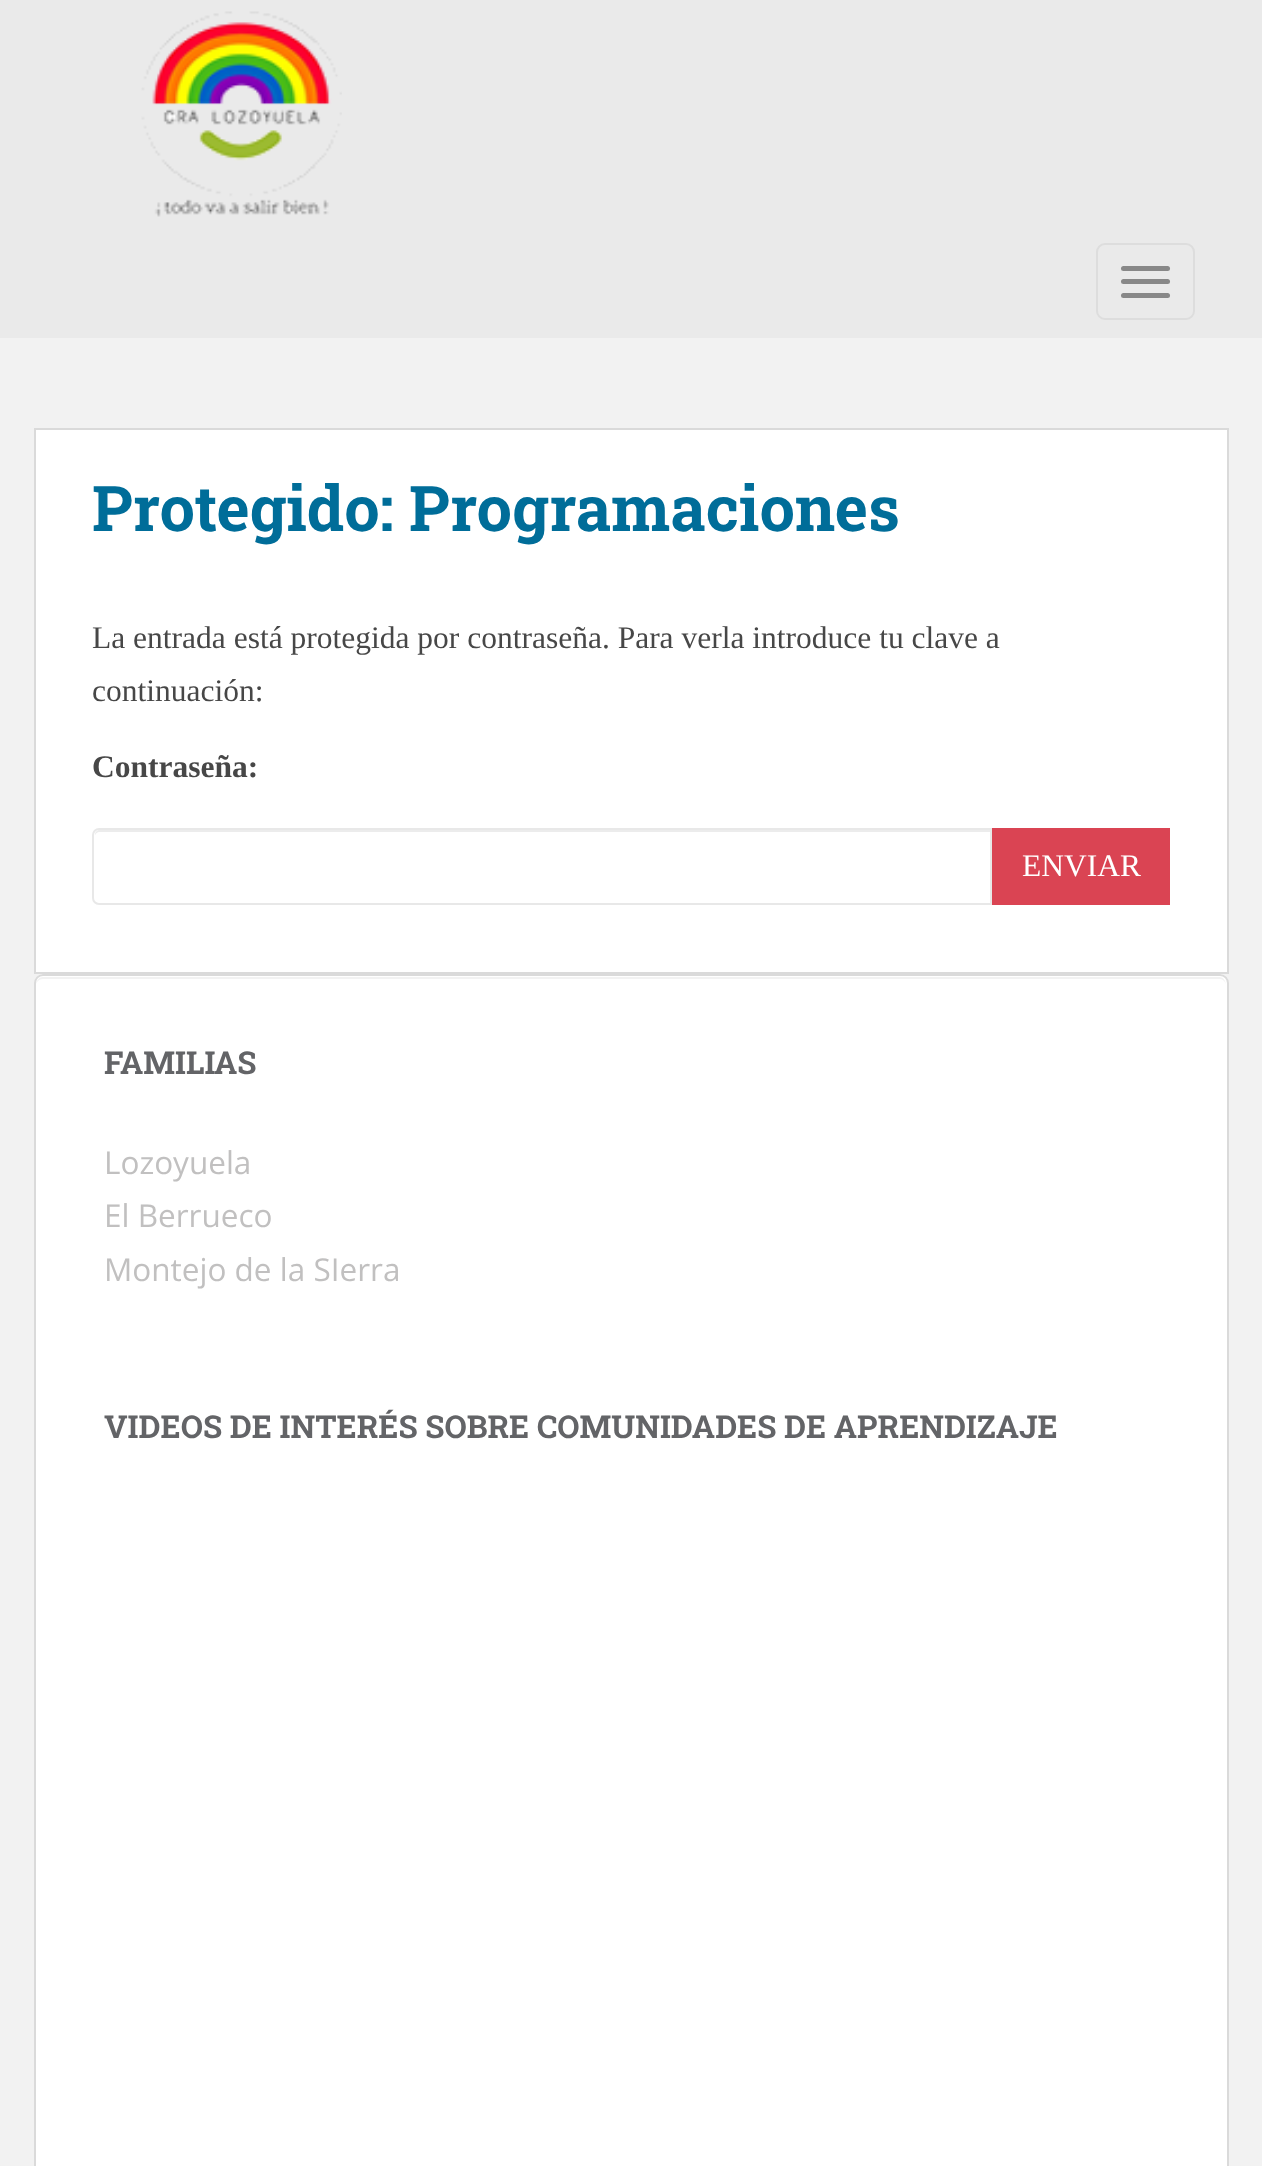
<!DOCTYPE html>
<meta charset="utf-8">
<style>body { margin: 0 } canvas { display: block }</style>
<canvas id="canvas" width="1262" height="2166"></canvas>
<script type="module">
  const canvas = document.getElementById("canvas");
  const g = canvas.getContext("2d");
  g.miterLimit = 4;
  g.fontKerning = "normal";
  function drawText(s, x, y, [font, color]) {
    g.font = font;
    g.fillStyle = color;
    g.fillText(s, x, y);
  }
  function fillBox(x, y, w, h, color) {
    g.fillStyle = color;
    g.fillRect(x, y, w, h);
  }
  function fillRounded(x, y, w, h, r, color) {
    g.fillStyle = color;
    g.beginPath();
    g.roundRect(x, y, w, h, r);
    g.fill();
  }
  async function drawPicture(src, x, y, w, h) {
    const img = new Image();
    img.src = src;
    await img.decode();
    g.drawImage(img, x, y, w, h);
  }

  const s1 = ["bold 63px Roboto Slab", "#006D99"];
  const s2 = ["31.5px Liberation Serif", "#474747"];
  const s3 = ["bold 31.5px Liberation Serif", "#474747"];
  const s4 = ["31.5px Liberation Serif", "#FFFFFF"];
  const s5 = ["bold 31.5px Roboto Slab", "#636467"];
  const s6 = ["31.5px Open Sans", "#C1C0C0"];

  fillBox(0, 0, 1262, 2166, "#F2F2F2");
  fillBox(0, 0, 1262, 338, "#EAEAEA");
  await drawPicture("pic1.png", 141, 11, 201, 206);
  g.beginPath();
  g.roundRect(1097, 244, 97, 75, 8);
  g.strokeStyle = "#DDDDDD";
  g.lineWidth = 2;
  g.stroke();
  fillRounded(1121, 266, 49, 5, 2.5, "#888888");
  fillRounded(1121, 279, 49, 5, 2.5, "#888888");
  fillRounded(1121, 293, 49, 5, 2.5, "#888888");
  g.fillStyle = "#FFFFFF";
  g.beginPath();
  g.rect(35, 429, 1193, 544);
  g.fill();
  g.strokeStyle = "#DADADA";
  g.stroke();
  drawText("Protegido: Programaciones", 92, 531, s1);
  drawText("La entrada está protegida por contraseña. Para verla introduce tu clave a", 92, 648, s2);
  drawText("continuación:", 92, 701, s2);
  drawText("Contraseña:", 92, 777, s3);
  g.fillStyle = "#ECECEC";
  g.beginPath();
  g.moveTo(99, 832);
  g.lineTo(990, 832);
  g.lineTo(990, 830);
  g.lineTo(100, 830);
  g.bezierCurveTo(97, 830, 95, 832, 95, 835);
  g.bezierCurveTo(96, 833, 98, 832, 99, 832);
  g.closePath();
  g.fill();
  g.beginPath();
  g.roundRect(93, 829, 898, 75, [6, 0, 0, 6]);
  g.strokeStyle = "#E8E8E8";
  g.stroke();
  fillBox(992, 828, 178, 77, "#DA4453");
  drawText("ENVIAR", 1022, 876, s4);
  fillRounded(34, 974, 1195, 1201, 9, "#FFFFFF");
  g.fillStyle = "#F2F2F2";
  g.beginPath();
  g.moveTo(43, 979);
  g.lineTo(1220, 979);
  g.bezierCurveTo(1223, 979, 1226, 982, 1226, 986);
  g.bezierCurveTo(1226, 982, 1224, 977, 1219, 977);
  g.lineTo(43, 977);
  g.bezierCurveTo(38, 977, 36, 982, 36, 986);
  g.bezierCurveTo(36, 982, 39, 979, 43, 979);
  g.closePath();
  g.fill();
  g.beginPath();
  g.roundRect(35, 975, 1193, 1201, 8);
  g.strokeStyle = "#DADADA";
  g.stroke();
  drawText("FAMILIAS", 104, 1074, s5);
  drawText("Lozoyuela", 104, 1174, s6);
  drawText("El Berrueco", 104, 1227, s6);
  drawText("Montejo de la SIerra", 104, 1281, s6);
  drawText("VIDEOS DE INTERÉS SOBRE COMUNIDADES DE APRENDIZAJE", 104, 1438, s5);
</script>
